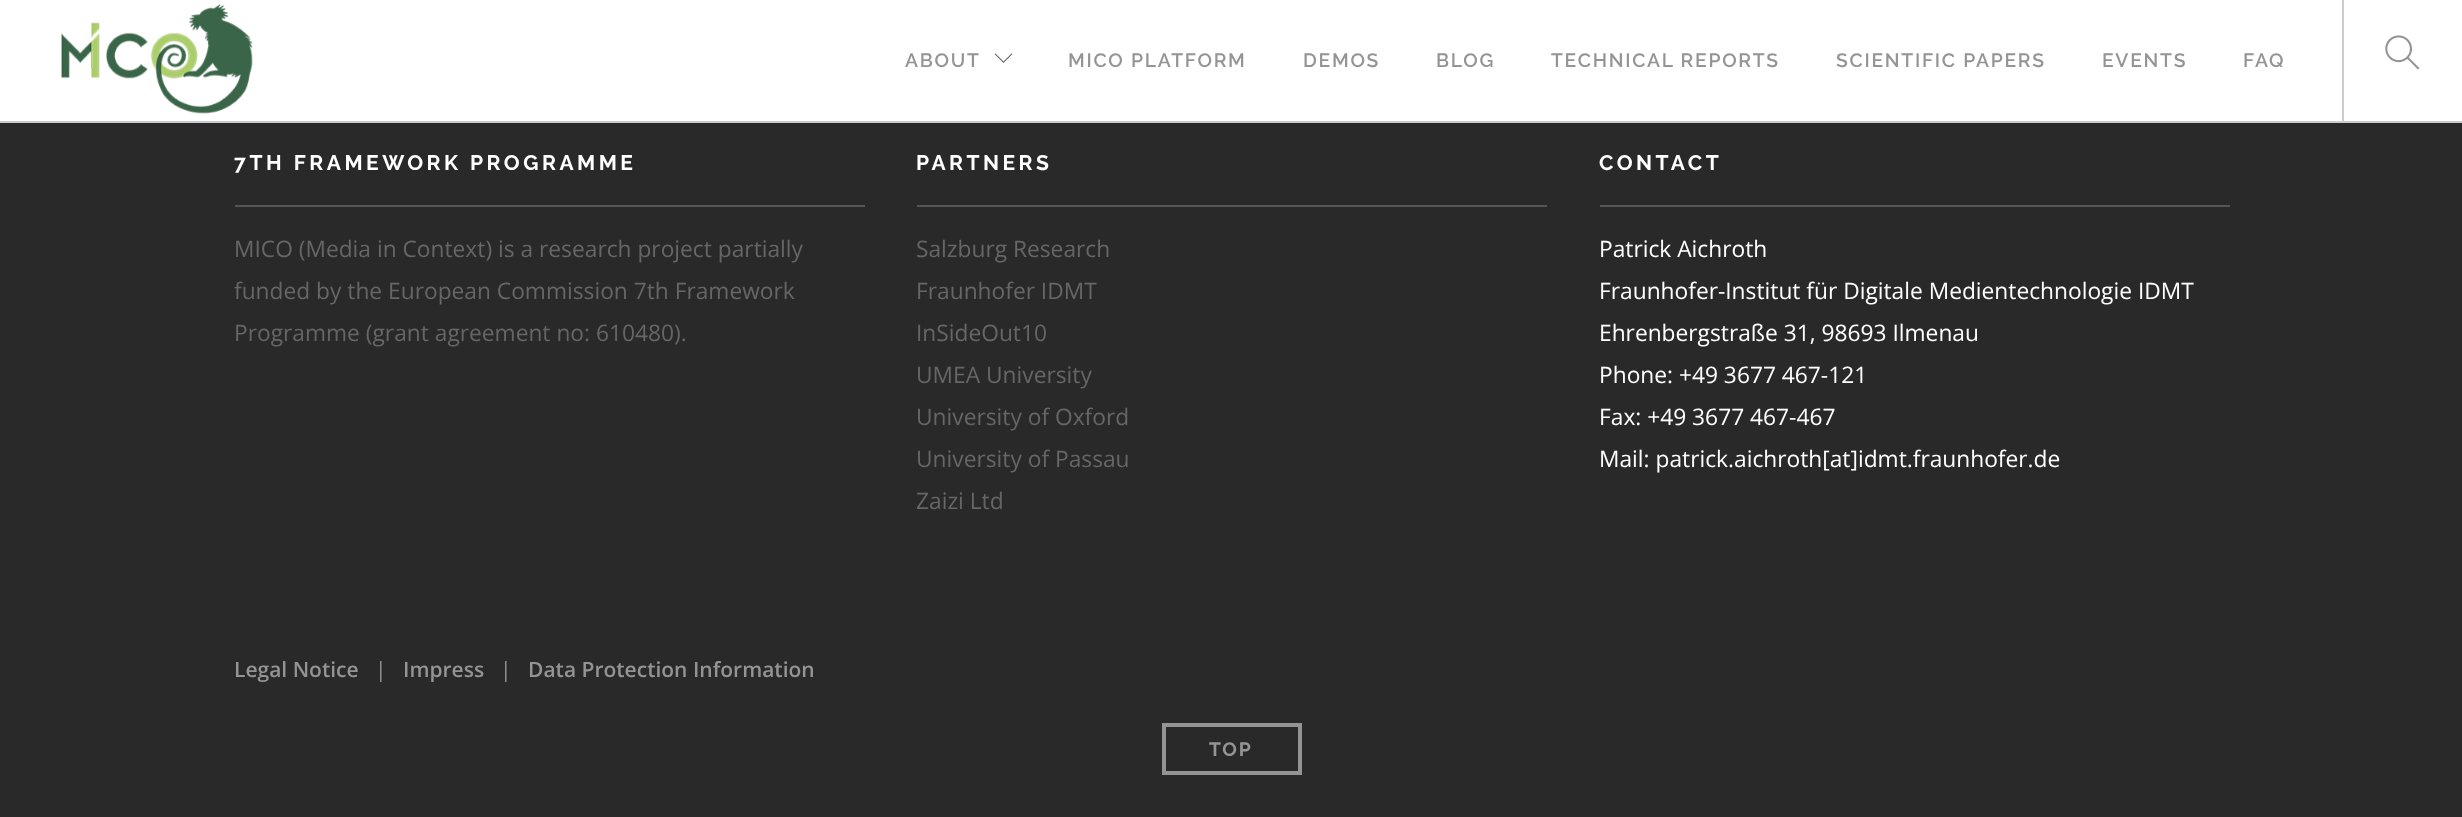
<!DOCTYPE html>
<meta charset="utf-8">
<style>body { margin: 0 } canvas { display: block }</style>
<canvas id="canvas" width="2462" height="817"></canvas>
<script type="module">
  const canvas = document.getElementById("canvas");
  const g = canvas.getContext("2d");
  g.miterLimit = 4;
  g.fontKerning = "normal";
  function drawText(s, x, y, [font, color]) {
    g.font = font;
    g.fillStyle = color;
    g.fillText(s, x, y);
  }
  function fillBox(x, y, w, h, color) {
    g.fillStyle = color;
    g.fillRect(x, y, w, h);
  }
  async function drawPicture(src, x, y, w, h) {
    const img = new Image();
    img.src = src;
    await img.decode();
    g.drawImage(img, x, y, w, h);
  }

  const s1 = ["600 19.25px Raleway", "#949494"];
  const s2 = ["bold 21px Raleway", "#FFFFFF"];
  const s3 = ["22.75px Open Sans", "#666666"];
  const s4 = ["22.75px Open Sans", "#FFFFFF"];
  const s5 = ["600 21px Open Sans", "#949494"];
  const s6 = ["21px Open Sans", "#949494"];
  const s7 = ["bold 19.25px Raleway", "#949494"];

  fillBox(0, 0, 2462, 817, "#292929");
  fillBox(0, 0, 2462, 121, "#FFFFFF");
  fillBox(0, 121, 2462, 2, "#CCCCCC");
  await drawPicture("pic1.png", 61, 4, 192, 110);
  g.letterSpacing = "1.75px";
  drawText("ABOUT", 905, 67, s1);
  g.fillStyle = "#666666";
  g.beginPath();
  g.moveTo(1012.5, 54);
  g.lineTo(1003.5, 63);
  g.lineTo(994.5, 54);
  g.lineTo(995.5, 53.5);
  g.lineTo(1003.5, 61.5);
  g.lineTo(1011.5, 53.5);
  g.closePath();
  g.fill();
  drawText("MICO PLATFORM", 1068, 67, s1);
  drawText("DEMOS", 1303, 67, s1);
  drawText("BLOG", 1436, 67, s1);
  drawText("TECHNICAL REPORTS", 1551, 67, s1);
  drawText("SCIENTIFIC PAPERS", 1836, 67, s1);
  drawText("EVENTS", 2102, 67, s1);
  drawText("FAQ", 2243, 67, s1);
  fillBox(2342, 0, 2, 123, "#CCCCCC");
  await drawPicture("pic2.png", 2385, 35, 35, 35);
  g.letterSpacing = "3.5px";
  drawText("7TH FRAMEWORK PROGRAMME", 234, 170, s2);
  fillBox(235, 205, 630, 2, "#555555");
  g.letterSpacing = "0px";
  drawText("MICO (Media in Context) is a research project partially", 234, 257, s3);
  drawText("funded by the European Commission 7th Framework", 234, 299, s3);
  drawText("Programme (grant agreement no: 610480).", 234, 341, s3);
  g.letterSpacing = "3.5px";
  drawText("PARTNERS", 916, 170, s2);
  fillBox(917, 205, 630, 2, "#555555");
  g.letterSpacing = "0px";
  drawText("Salzburg Research", 916, 257, s3);
  drawText("Fraunhofer IDMT", 916, 299, s3);
  drawText("InSideOut10", 916, 341, s3);
  drawText("UMEA University", 916, 383, s3);
  drawText("University of Oxford", 916, 425, s3);
  drawText("University of Passau", 916, 467, s3);
  drawText("Zaizi Ltd", 916, 509, s3);
  g.letterSpacing = "3.5px";
  drawText("CONTACT", 1599, 170, s2);
  fillBox(1600, 205, 630, 2, "#555555");
  g.letterSpacing = "0px";
  drawText("Patrick Aichroth", 1599, 257, s4);
  drawText("Fraunhofer-Institut für Digitale Medientechnologie IDMT", 1599, 299, s4);
  drawText("Ehrenbergstraße 31, 98693 Ilmenau", 1599, 341, s4);
  drawText("Phone: +49 3677 467-121", 1599, 383, s4);
  drawText("Fax: +49 3677 467-467", 1599, 425, s4);
  drawText("Mail: patrick.aichroth[at]idmt.fraunhofer.de", 1599, 467, s4);
  drawText("Legal Notice", 234, 677, s5);
  drawText("|", 375, 677, s6);
  drawText("Impress", 403, 677, s5);
  drawText("|", 500, 677, s6);
  drawText("Data Protection Information", 528, 677, s5);
  g.strokeStyle = "#949494";
  g.lineWidth = 4;
  g.strokeRect(1164, 725, 136, 48);
  g.letterSpacing = "1.75px";
  drawText("TOP", 1209, 756, s7);
</script>
